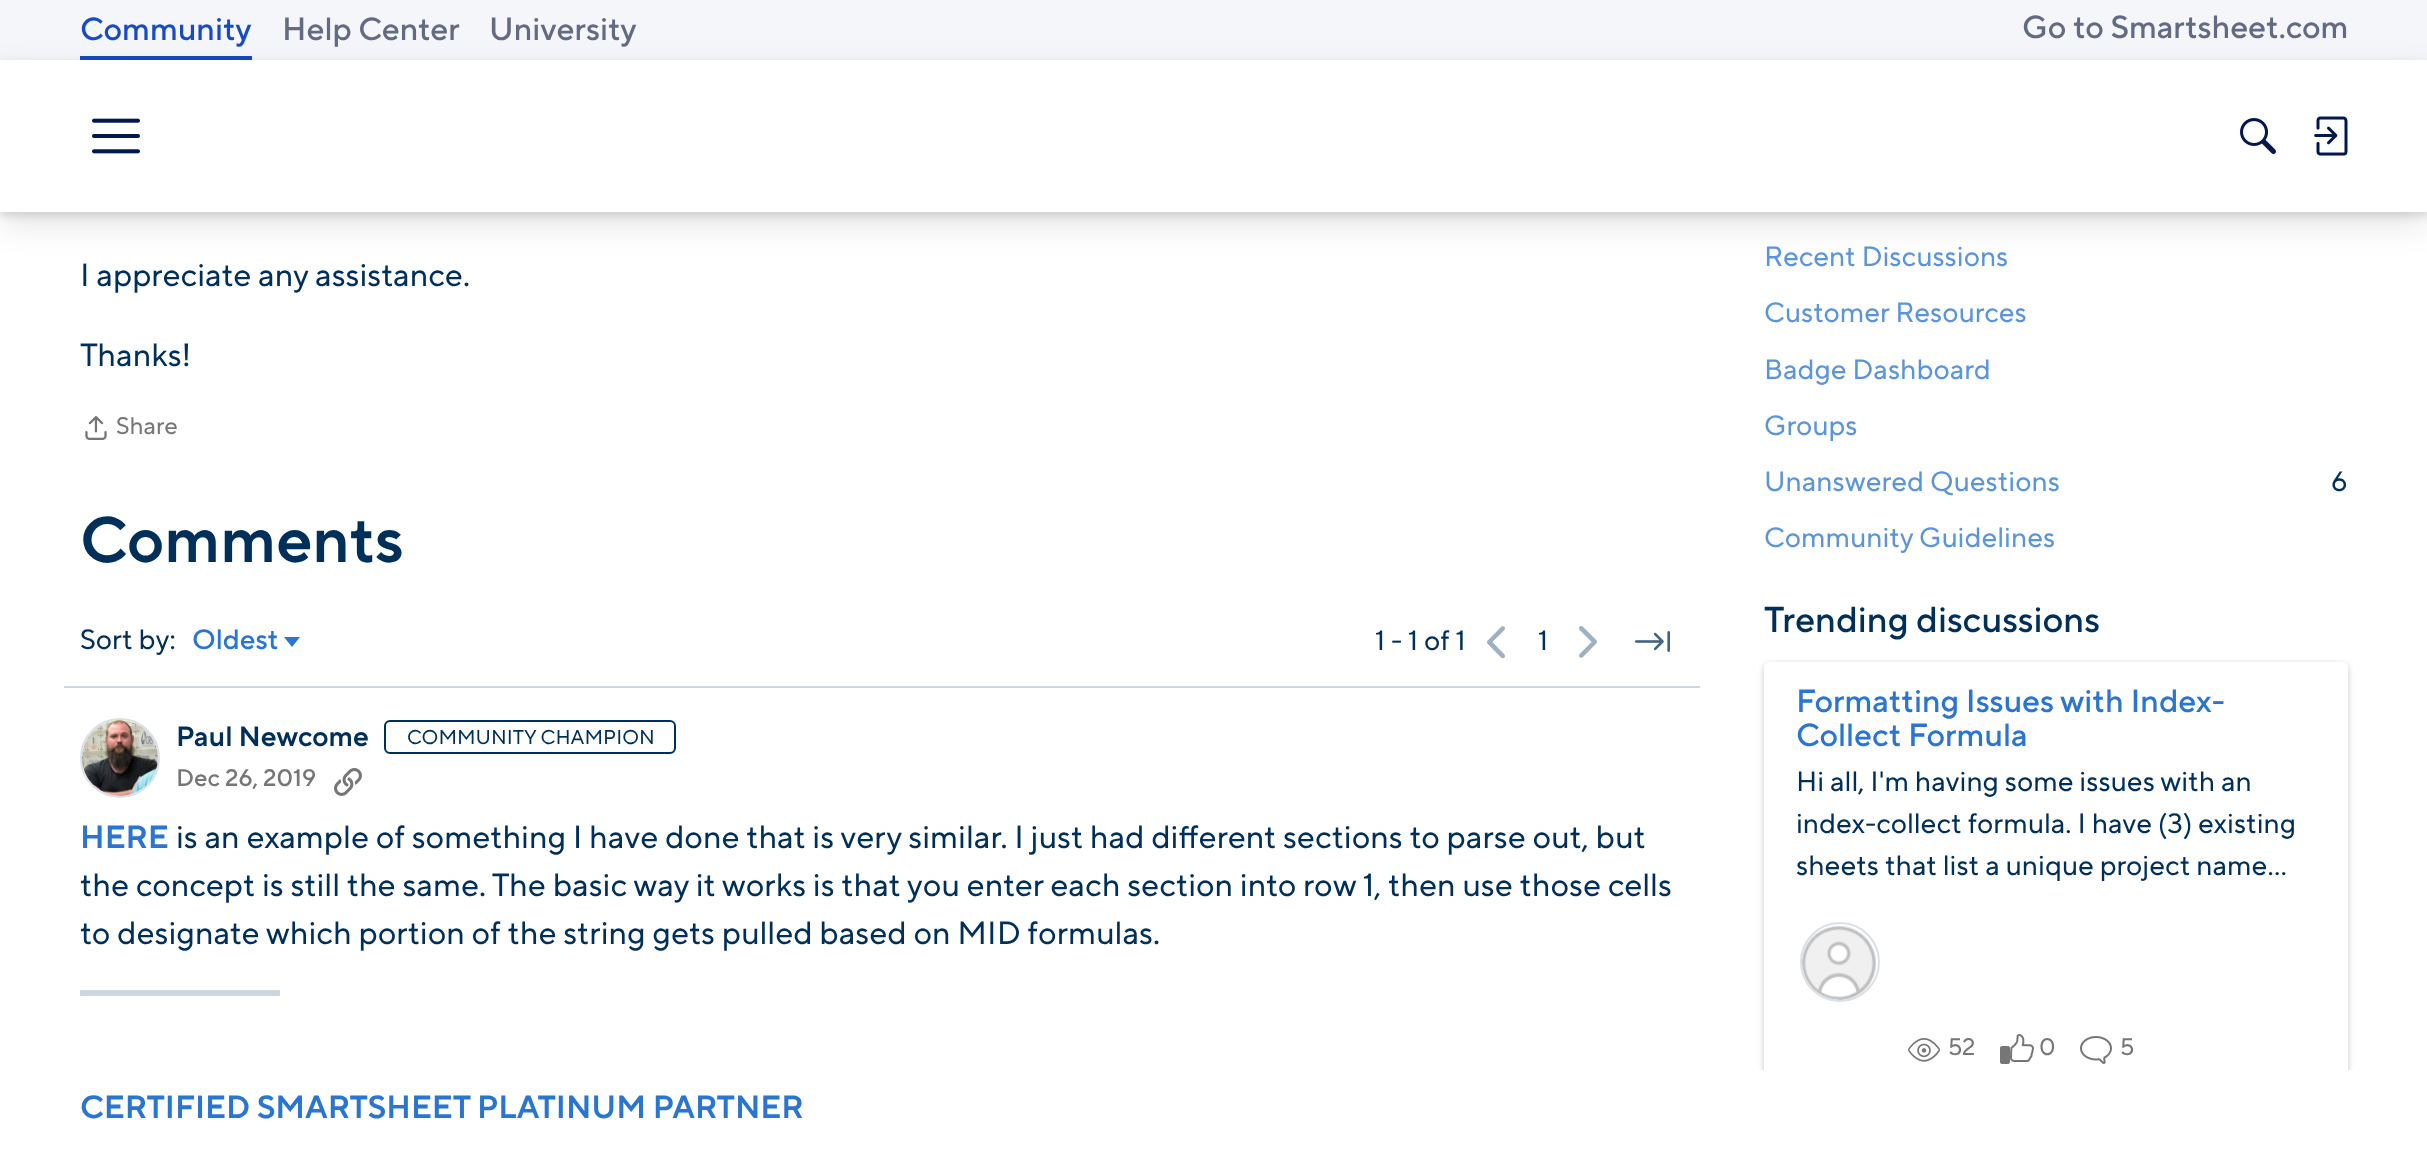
<!DOCTYPE html>
<meta charset="utf-8">
<style>body { margin: 0 } canvas { display: block }</style>
<canvas id="canvas" width="2427" height="1150"></canvas>
<script type="module">
  const canvas = document.getElementById("canvas");
  const g = canvas.getContext("2d");
  g.miterLimit = 4;
  g.fontKerning = "normal";
  function drawText(s, x, y, [font, color]) {
    g.font = font;
    g.fillStyle = color;
    g.fillText(s, x, y);
  }
  function fillBox(x, y, w, h, color) {
    g.fillStyle = color;
    g.fillRect(x, y, w, h);
  }
  async function drawPicture(src, x, y, w, h) {
    const img = new Image();
    img.src = src;
    await img.decode();
    g.drawImage(img, x, y, w, h);
  }

  const s1 = ["500 32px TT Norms", "#184BC3"];
  const s2 = ["500 32px TT Norms", "#626B83"];
  const s3 = ["32px TT Norms", "#003059"];
  const s4 = ["24px TT Norms", "#767676"];
  const s5 = ["600 64px TT Norms", "#003059"];
  const s6 = ["28px TT Norms", "#003059"];
  const s7 = ["500 28px TT Norms", "#2A75D1"];
  const s8 = ["600 28px TT Norms", "#003059"];
  const s9 = ["20px TT Norms", "#003059"];
  const s10 = ["500 24px TT Norms", "#767676"];
  const s11 = ["600 32px TT Norms", "#2A75D1"];
  const s12 = ["28px TT Norms", "#5A94DA"];
  const s13 = ["500 36px TT Norms", "#003059"];
  const s14 = ["500 32px TT Norms", "#2A75D1"];

  fillBox(0, 0, 2427, 1150, "#FFFFFF");
  fillBox(0, 0, 2427, 60, "#F5F6FA");
  drawText("Community", 80, 40, s1);
  fillBox(80, 56, 172, 4, "#184BC3");
  drawText("Help Center", 282, 40, s2);
  drawText("University", 489, 40, s2);
  drawText("Go to Smartsheet.com", 2022, 38, s2);
  g.fillStyle = "rgba(0, 0, 0, 0.1)";
  g.filter = "blur(16px)";
  g.beginPath();
  g.rect(0, 72, 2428, 152);
  g.fill();
  g.filter = "none";
  g.fillStyle = "rgba(0, 0, 0, 0.12)";
  g.filter = "blur(4px)";
  g.beginPath();
  g.rect(0, 64, 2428, 152);
  g.fill();
  g.filter = "none";
  fillBox(0, 60, 2427, 152, "#FFFFFF");
  await drawPicture("pic1.png", 92, 118, 48, 36);
  await drawPicture("pic2.png", 2240, 118, 36, 36);
  await drawPicture("pic3.png", 2314, 116, 34, 40);
  drawText("I appreciate any assistance.", 80, 286, s3);
  drawText("Thanks!", 80, 366, s3);
  await drawPicture("pic4.png", 85, 416, 22, 24);
  drawText("Share", 116, 434, s4);
  drawText("Comments", 80, 562, s5);
  drawText("Sort by:", 80, 649, s6);
  drawText("Oldest", 192, 649, s7);
  g.beginPath();
  g.moveTo(284, 637);
  g.lineTo(300, 637);
  g.lineTo(292, 647);
  g.closePath();
  g.fill();
  drawText("1 - 1 of 1", 1375, 650, s6);
  await drawPicture("pic5.png", 1487, 626, 18, 33);
  drawText("1", 1538, 650, s6);
  await drawPicture("pic6.png", 1579, 626, 18, 32);
  await drawPicture("pic7.png", 1635, 631, 35, 21);
  fillBox(64, 686, 1636, 2, "#CCD6DE");
  g.beginPath();
  g.arc(120, 758, 39, 0, Math.PI * 2);
  g.strokeStyle = "#D9E0E6";
  g.lineWidth = 2;
  g.stroke();
  await drawPicture("pic8.png", 82, 720, 76, 76);
  drawText("Paul Newcome", 176, 746, s8);
  g.beginPath();
  g.roundRect(385, 721, 290, 32, 5);
  g.strokeStyle = "#003059";
  g.stroke();
  drawText("COMMUNITY CHAMPION", 407, 744, s9);
  drawText("Dec 26, 2019", 176, 786, s10);
  await drawPicture("pic9.png", 334, 768, 28, 28);
  drawText("HERE", 80, 848, s11);
  drawText("is an example of something I have done that is very similar. I just had different sections to parse out, but", 176, 848, s3);
  drawText("the concept is still the same. The basic way it works is that you enter each section into row 1, then use those cells", 80, 896, s3);
  drawText("to designate which portion of the string gets pulled based on MID formulas.", 80, 944, s3);
  fillBox(80, 990, 200, 6, "#CCD6DE");
  drawText("CERTIFIED SMARTSHEET PLATINUM PARTNER", 80, 1118, s11);
  drawText("Recent Discussions", 1764, 266, s12);
  drawText("Customer Resources", 1764, 322, s12);
  drawText("Badge Dashboard", 1764, 379, s12);
  drawText("Groups", 1764, 435, s12);
  drawText("Unanswered Questions", 1764, 491, s12);
  drawText("6", 2331, 491, s6);
  drawText("Community Guidelines", 1764, 547, s12);
  drawText("Trending discussions", 1764, 632, s13);
  g.save();
  g.beginPath();
  g.rect(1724, 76, 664, 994);
  g.clip();
  g.fillStyle = "rgba(0, 0, 0, 0.22)";
  g.filter = "blur(3px)";
  g.beginPath();
  g.roundRect(1764, 664, 584, 440, 6);
  g.fill();
  g.filter = "none";
  g.restore();
  g.fillStyle = "#FFFFFF";
  g.beginPath();
  g.roundRect(1764, 662, 584, 408, [6, 6, 0, 0]);
  g.fill();
  drawText("Formatting Issues with Index-", 1796, 712, s14);
  drawText("Collect Formula", 1796, 746, s14);
  drawText("Hi all, I'm having some issues with an", 1796, 791, s6);
  drawText("index-collect formula. I have (3) existing", 1796, 833, s6);
  drawText("sheets that list a unique project name…", 1796, 875, s6);
  g.beginPath();
  g.arc(1840, 962, 39, 0, Math.PI * 2);
  g.strokeStyle = "#D9E0E6";
  g.stroke();
  await drawPicture("pic10.png", 1802, 925, 75, 75);
  await drawPicture("pic11.png", 1908, 1038, 32, 24);
  drawText("52", 1948, 1055, s4);
  await drawPicture("pic12.png", 2000, 1034, 34, 30);
  drawText("0", 2039, 1055, s4);
  await drawPicture("pic13.png", 2080, 1036, 32, 28);
  drawText("5", 2120, 1055, s4);
</script>
